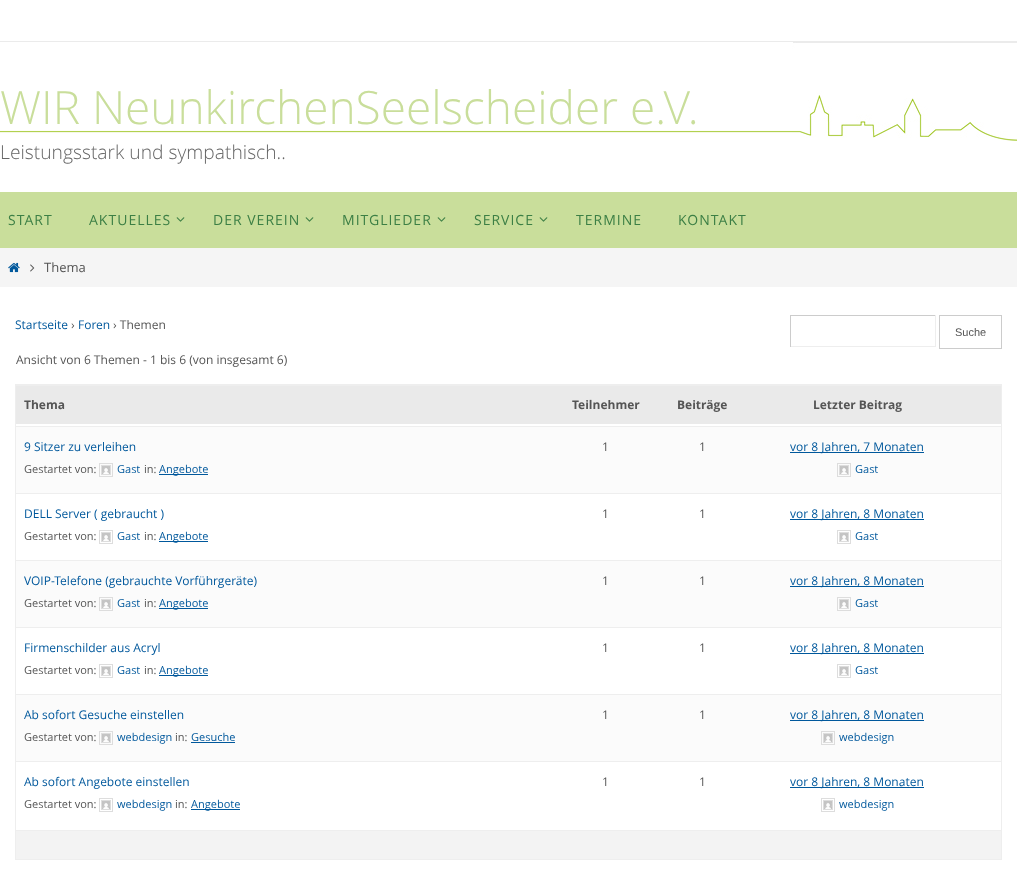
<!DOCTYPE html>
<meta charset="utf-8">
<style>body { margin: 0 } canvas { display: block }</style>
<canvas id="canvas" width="1017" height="888"></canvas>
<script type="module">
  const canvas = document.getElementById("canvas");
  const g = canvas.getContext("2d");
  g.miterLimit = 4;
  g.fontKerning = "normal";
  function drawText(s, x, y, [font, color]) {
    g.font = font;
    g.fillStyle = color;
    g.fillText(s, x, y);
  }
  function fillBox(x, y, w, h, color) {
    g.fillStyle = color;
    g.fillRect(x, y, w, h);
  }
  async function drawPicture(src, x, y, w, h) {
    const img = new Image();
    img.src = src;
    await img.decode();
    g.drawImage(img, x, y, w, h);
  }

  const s1 = ["300 46px Open Sans", "#C9DE9B"];
  const s2 = ["300 19.25px Open Sans", "#666666"];
  const s3 = ["14px Open Sans", "#3C7F45"];
  const s4 = ["13px Open Sans", "#555555"];
  const s5 = ["12px Open Sans", "#00589C"];
  const s6 = ["12px Open Sans", "#555555"];
  const s7 = ["11px Liberation Sans", "#555555"];
  const s8 = ["bold 12px Open Sans", "#555555"];
  const s9 = ["11px Open Sans", "#555555"];
  const s10 = ["11px Open Sans", "#00589C"];

  fillBox(0, 0, 1017, 888, "#FFFFFF");
  fillBox(0, 41, 1017, 1, "#EBEBEB");
  await drawPicture("pic1.png", 0, 42, 1017, 99);
  drawText("WIR NeunkirchenSeelscheider e.V.", 0, 124, s1);
  drawText("Leistungsstark und sympathisch..", 0, 159, s2);
  fillBox(0, 192, 1017, 56, "#C9DE9B");
  g.letterSpacing = "1px";
  drawText("START", 8, 225, s3);
  drawText("AKTUELLES", 89, 225, s3);
  await drawPicture("pic2.png", 176, 217, 9, 5);
  drawText("DER VEREIN", 213, 225, s3);
  await drawPicture("pic2.png", 305, 217, 9, 5);
  drawText("MITGLIEDER", 342, 225, s3);
  await drawPicture("pic2.png", 437, 217, 9, 5);
  drawText("SERVICE", 474, 225, s3);
  await drawPicture("pic2.png", 539, 217, 9, 5);
  drawText("TERMINE", 576, 225, s3);
  drawText("KONTAKT", 678, 225, s3);
  fillBox(0, 248, 1017, 39, "#F5F5F5");
  await drawPicture("pic3.png", 8, 262, 12, 11);
  await drawPicture("pic4.png", 30, 264, 5, 8);
  g.letterSpacing = "0px";
  drawText("Thema", 44, 272, s4);
  drawText("Startseite", 15, 329, s5);
  drawText("›", 71, 329, s6);
  drawText("Foren", 78, 329, s5);
  drawText("› Themen", 113, 329, s6);
  fillBox(790, 315, 146, 1, "#CCCCCC");
  fillBox(935, 315, 1, 32, "#EEEEEE");
  fillBox(790, 346, 146, 1, "#EEEEEE");
  fillBox(790, 315, 1, 32, "#CCCCCC");
  g.strokeStyle = "#CCCCCC";
  g.strokeRect(939.5, 315.5, 62, 33);
  drawText("Suche", 955, 336, s7);
  drawText("Ansicht von 6 Themen - 1 bis 6 (von insgesamt 6)", 16, 364, s6);
  g.strokeStyle = "#EEEEEE";
  g.strokeRect(15.5, 384.5, 986, 475);
  fillBox(16, 386, 985, 38, "#EAEAEA");
  fillBox(16, 385, 985, 1, "#EEEEEE");
  drawText("Thema", 24, 409, s8);
  drawText("Teilnehmer", 572, 409, s8);
  drawText("Beiträge", 677, 409, s8);
  drawText("Letzter Beitrag", 813, 409, s8);
  fillBox(16, 427, 985, 66, "#FBFBFB");
  fillBox(16, 426, 985, 1, "#EEEEEE");
  drawText("9 Sitzer zu verleihen", 24, 451, s5);
  drawText("Gestartet von:", 24, 473, s9);
  g.strokeStyle = "#DDDDDD";
  g.strokeRect(99.5, 463.5, 13, 13);
  g.strokeRect(101.5, 465.5, 9, 9);
  await drawPicture("pic5.png", 102, 466, 8, 8);
  drawText("Gast", 117, 473, s10);
  drawText("in:", 144, 473, s9);
  fillBox(159, 474, 49, 1, "#00589C");
  drawText("Angebote", 159, 473, s10);
  drawText("1", 602, 451, s6);
  drawText("1", 699, 451, s6);
  fillBox(790, 452, 134, 1, "#00589C");
  drawText("vor 8 Jahren, 7 Monaten", 790, 451, s5);
  g.strokeRect(837.5, 463.5, 13, 13);
  g.strokeRect(839.5, 465.5, 9, 9);
  await drawPicture("pic5.png", 840, 466, 8, 8);
  drawText("Gast", 855, 473, s10);
  fillBox(16, 493, 985, 1, "#EEEEEE");
  drawText("DELL Server ( gebraucht )", 24, 518, s5);
  drawText("Gestartet von:", 24, 540, s9);
  g.strokeRect(99.5, 530.5, 13, 13);
  g.strokeRect(101.5, 532.5, 9, 9);
  await drawPicture("pic5.png", 102, 533, 8, 8);
  drawText("Gast", 117, 540, s10);
  drawText("in:", 144, 540, s9);
  fillBox(159, 541, 49, 1, "#00589C");
  drawText("Angebote", 159, 540, s10);
  drawText("1", 602, 518, s6);
  drawText("1", 699, 518, s6);
  fillBox(790, 519, 134, 1, "#00589C");
  drawText("vor 8 Jahren, 8 Monaten", 790, 518, s5);
  g.strokeRect(837.5, 530.5, 13, 13);
  g.strokeRect(839.5, 532.5, 9, 9);
  await drawPicture("pic5.png", 840, 533, 8, 8);
  drawText("Gast", 855, 540, s10);
  fillBox(16, 561, 985, 66, "#FBFBFB");
  fillBox(16, 560, 985, 1, "#EEEEEE");
  drawText("VOIP-Telefone (gebrauchte Vorführgeräte)", 24, 585, s5);
  drawText("Gestartet von:", 24, 607, s9);
  g.strokeRect(99.5, 597.5, 13, 13);
  g.strokeRect(101.5, 599.5, 9, 9);
  await drawPicture("pic5.png", 102, 600, 8, 8);
  drawText("Gast", 117, 607, s10);
  drawText("in:", 144, 607, s9);
  fillBox(159, 608, 49, 1, "#00589C");
  drawText("Angebote", 159, 607, s10);
  drawText("1", 602, 585, s6);
  drawText("1", 699, 585, s6);
  fillBox(790, 586, 134, 1, "#00589C");
  drawText("vor 8 Jahren, 8 Monaten", 790, 585, s5);
  g.strokeRect(837.5, 597.5, 13, 13);
  g.strokeRect(839.5, 599.5, 9, 9);
  await drawPicture("pic5.png", 840, 600, 8, 8);
  drawText("Gast", 855, 607, s10);
  fillBox(16, 627, 985, 1, "#EEEEEE");
  drawText("Firmenschilder aus Acryl", 24, 652, s5);
  drawText("Gestartet von:", 24, 674, s9);
  g.strokeRect(99.5, 664.5, 13, 13);
  g.strokeRect(101.5, 666.5, 9, 9);
  await drawPicture("pic5.png", 102, 667, 8, 8);
  drawText("Gast", 117, 674, s10);
  drawText("in:", 144, 674, s9);
  fillBox(159, 675, 49, 1, "#00589C");
  drawText("Angebote", 159, 674, s10);
  drawText("1", 602, 652, s6);
  drawText("1", 699, 652, s6);
  fillBox(790, 653, 134, 1, "#00589C");
  drawText("vor 8 Jahren, 8 Monaten", 790, 652, s5);
  g.strokeRect(837.5, 664.5, 13, 13);
  g.strokeRect(839.5, 666.5, 9, 9);
  await drawPicture("pic5.png", 840, 667, 8, 8);
  drawText("Gast", 855, 674, s10);
  fillBox(16, 695, 985, 66, "#FBFBFB");
  fillBox(16, 694, 985, 1, "#EEEEEE");
  drawText("Ab sofort Gesuche einstellen", 24, 719, s5);
  drawText("Gestartet von:", 24, 741, s9);
  g.strokeRect(99.5, 731.5, 13, 13);
  g.strokeRect(101.5, 733.5, 9, 9);
  await drawPicture("pic5.png", 102, 734, 8, 8);
  drawText("webdesign", 117, 741, s10);
  drawText("in:", 175, 741, s9);
  drawText("Gesuche", 191, 741, s10);
  fillBox(191, 742, 44, 1, "#00589C");
  drawText("1", 602, 719, s6);
  drawText("1", 699, 719, s6);
  fillBox(790, 720, 134, 1, "#00589C");
  drawText("vor 8 Jahren, 8 Monaten", 790, 719, s5);
  g.strokeRect(821.5, 731.5, 13, 13);
  g.strokeRect(823.5, 733.5, 9, 9);
  await drawPicture("pic5.png", 824, 734, 8, 8);
  drawText("webdesign", 839, 741, s10);
  fillBox(16, 761, 985, 1, "#EEEEEE");
  drawText("Ab sofort Angebote einstellen", 24, 786, s5);
  drawText("Gestartet von:", 24, 808, s9);
  g.strokeRect(99.5, 798.5, 13, 13);
  g.strokeRect(101.5, 800.5, 9, 9);
  await drawPicture("pic5.png", 102, 801, 8, 8);
  drawText("webdesign", 117, 808, s10);
  drawText("in:", 175, 808, s9);
  fillBox(191, 809, 49, 1, "#00589C");
  drawText("Angebote", 191, 808, s10);
  drawText("1", 602, 786, s6);
  drawText("1", 699, 786, s6);
  fillBox(790, 787, 134, 1, "#00589C");
  drawText("vor 8 Jahren, 8 Monaten", 790, 786, s5);
  g.strokeRect(821.5, 798.5, 13, 13);
  g.strokeRect(823.5, 800.5, 9, 9);
  await drawPicture("pic5.png", 824, 801, 8, 8);
  drawText("webdesign", 839, 808, s10);
  fillBox(16, 831, 985, 28, "#F3F3F3");
  fillBox(16, 830, 985, 1, "#EEEEEE");
</script>
